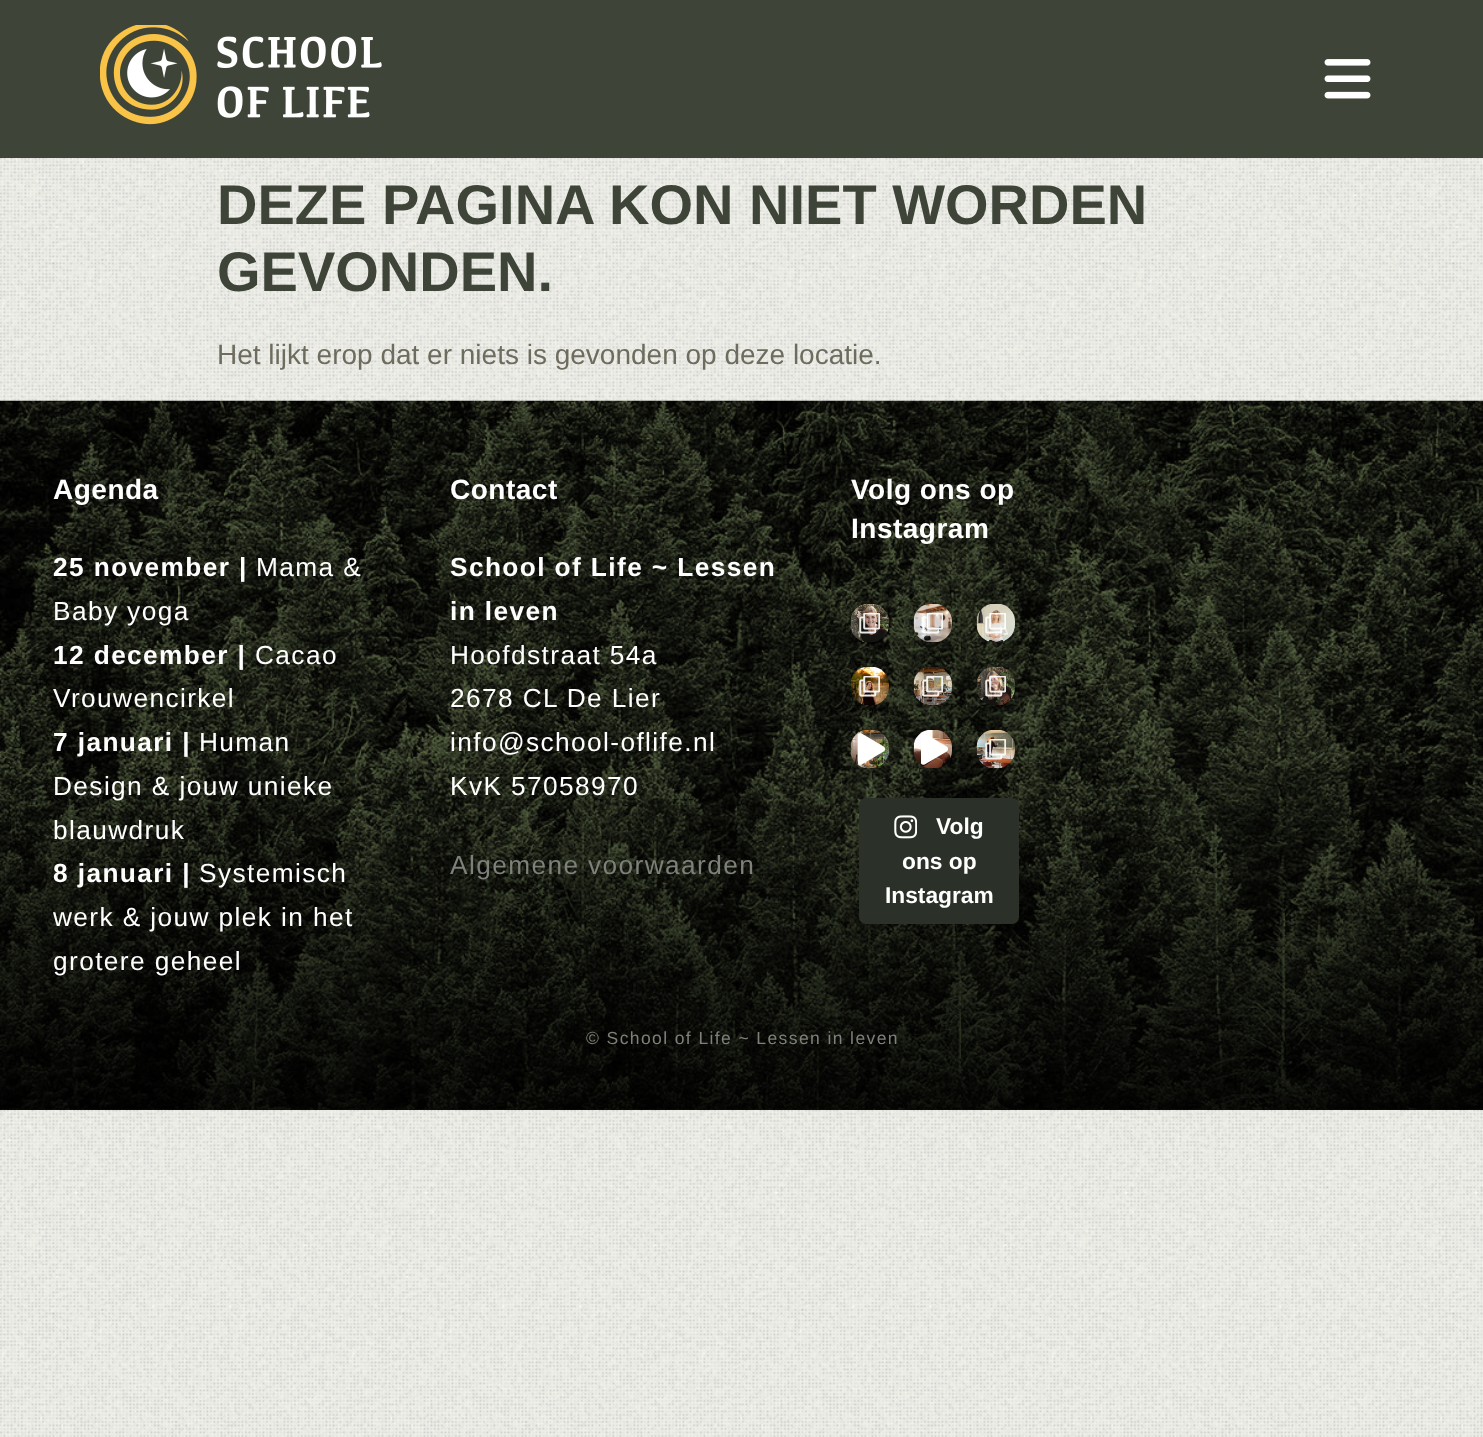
<!DOCTYPE html>
<meta charset="utf-8">
<style>body { margin: 0 } canvas { display: block }</style>
<canvas id="canvas" width="1483" height="1437"></canvas>
<script type="module">
  const canvas = document.getElementById("canvas");
  const g = canvas.getContext("2d");
  g.miterLimit = 4;
  g.fontKerning = "normal";
  function drawText(s, x, y, [font, color]) {
    g.font = font;
    g.fillStyle = color;
    g.fillText(s, x, y);
  }
  function fillBox(x, y, w, h, color) {
    g.fillStyle = color;
    g.fillRect(x, y, w, h);
  }
  function fillRounded(x, y, w, h, r, color) {
    g.fillStyle = color;
    g.beginPath();
    g.roundRect(x, y, w, h, r);
    g.fill();
  }
  async function drawPicture(src, x, y, w, h) {
    const img = new Image();
    img.src = src;
    await img.decode();
    g.drawImage(img, x, y, w, h);
  }
  let gradient;

  const s1 = ["bold 56px Liberation Sans", "#3E4538"];
  const s2 = ["28px Liberation Sans", "#6E6C5E"];
  const s3 = ["bold 28px Liberation Sans", "#FFFFFF"];
  const s4 = ["bold 26.25px Liberation Sans", "#FFFFFF"];
  const s5 = ["26.25px Liberation Sans", "#FFFFFF"];
  const s6 = ["26.25px Liberation Sans", "#7D8179"];
  const s7 = ["bold 22.75px Liberation Sans", "#FFFFFF"];
  const s8 = ["17.5px Liberation Sans", "#7D8179"];

  fillBox(0, 0, 1483, 1437, "#FFFFFF");
  await drawPicture("pic1.png", 0, 158, 1483, 1279);
  fillBox(0, 0, 1483, 158, "#3E4538");
  await drawPicture("pic2.png", 100, 25, 282, 100);
  await drawPicture("pic3.png", 1324, 59, 47, 40);
  drawText("DEZE PAGINA KON NIET WORDEN", 217, 224, s1);
  drawText("GEVONDEN.", 217, 291, s1);
  drawText("Het lijkt erop dat er niets is gevonden op deze locatie.", 217, 364, s2);
  fillBox(0, 1109, 1483, 1, "#2C342A");
  await drawPicture("pic4.png", 0, 400, 1483, 710);
  g.letterSpacing = "0.5px";
  drawText("Agenda", 53, 499, s3);
  g.letterSpacing = "1.4px";
  drawText("25 november |", 53, 576, s4);
  drawText("Mama &", 256, 576, s5);
  drawText("Baby yoga", 53, 620, s5);
  drawText("12 december |", 53, 664, s4);
  drawText("Cacao", 255, 664, s5);
  drawText("Vrouwencirkel", 53, 707, s5);
  drawText("7 januari |", 53, 751, s4);
  drawText("Human", 199, 751, s5);
  gradient = g.createLinearGradient(742, 401, 742, 1110);
  gradient.addColorStop(0.5, "rgba(0, 0, 0, 0)");
  gradient.addColorStop(1, "rgba(0, 0, 0, 0.7)");
  g.fillStyle = gradient;
  g.fillRect(0, 768, 1483, 342);
  drawText("Design & jouw unieke", 53, 795, s5);
  drawText("blauwdruk", 53, 839, s5);
  drawText("8 januari |", 53, 882, s4);
  drawText("Systemisch", 199, 882, s5);
  drawText("werk & jouw plek in het", 53, 926, s5);
  drawText("grotere geheel", 53, 970, s5);
  g.letterSpacing = "0.5px";
  drawText("Contact", 450, 499, s3);
  g.letterSpacing = "1.4px";
  drawText("School of Life ~ Lessen", 450, 576, s4);
  drawText("in leven", 450, 620, s4);
  drawText("Hoofdstraat 54a", 450, 664, s5);
  drawText("2678 CL De Lier", 450, 707, s5);
  drawText("info@school-oflife.nl", 450, 751, s5);
  drawText("KvK 57058970", 450, 795, s5);
  drawText("Algemene voorwaarden", 450, 874, s6);
  g.letterSpacing = "0.5px";
  drawText("Volg ons op", 851, 499, s3);
  drawText("Instagram", 851, 538, s3);
  await drawPicture("pic5.png", 850, 604, 39, 38);
  await drawPicture("pic6.png", 859, 613, 21, 21);
  await drawPicture("pic7.png", 913, 604, 39, 38);
  await drawPicture("pic8.png", 922, 613, 21, 21);
  await drawPicture("pic9.png", 976, 604, 39, 38);
  await drawPicture("pic10.png", 985, 613, 21, 21);
  await drawPicture("pic11.png", 850, 667, 39, 38);
  await drawPicture("pic12.png", 859, 676, 21, 21);
  await drawPicture("pic13.png", 913, 667, 39, 38);
  await drawPicture("pic14.png", 922, 676, 21, 21);
  await drawPicture("pic15.png", 976, 667, 39, 38);
  await drawPicture("pic16.png", 985, 676, 21, 21);
  await drawPicture("pic17.png", 850, 730, 39, 38);
  await drawPicture("pic18.png", 858, 733, 27, 32);
  await drawPicture("pic19.png", 913, 730, 39, 38);
  await drawPicture("pic20.png", 921, 735, 27, 30);
  await drawPicture("pic21.png", 976, 730, 39, 38);
  await drawPicture("pic22.png", 985, 739, 21, 21);
  fillRounded(859, 798, 160, 126, 7, "#2B3128");
  await drawPicture("pic23.png", 894, 815, 23, 24);
  g.letterSpacing = "0px";
  drawText("Volg", 936, 834, s7);
  drawText("ons op", 902, 869, s7);
  drawText("Instagram", 885, 903, s7);
  g.letterSpacing = "1.4px";
  drawText("© School of Life ~ Lessen in leven", 586, 1044, s8);
</script>
